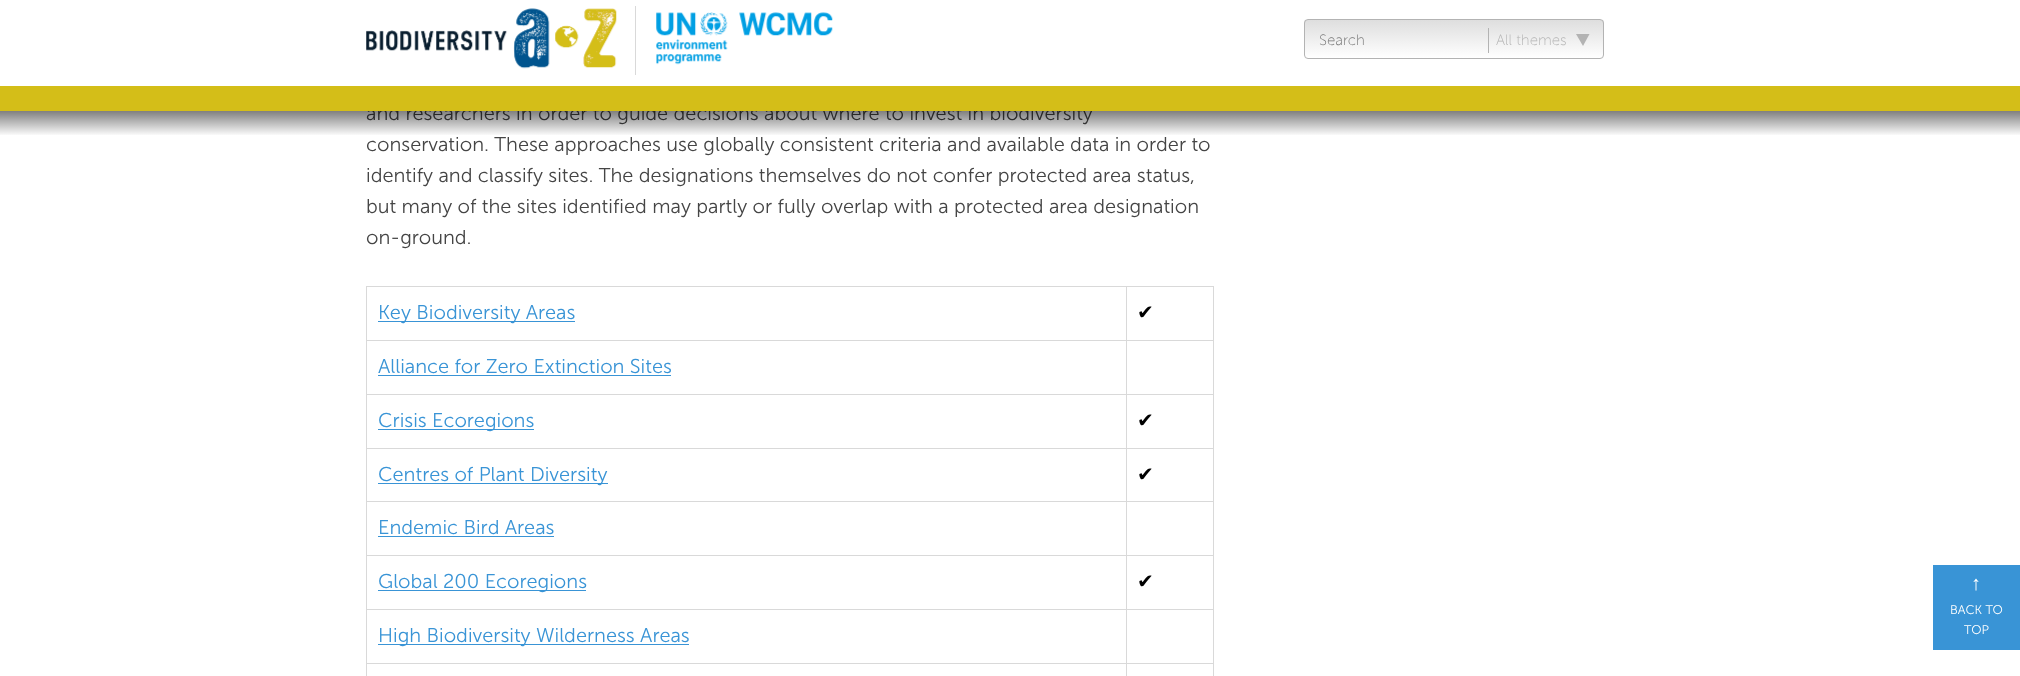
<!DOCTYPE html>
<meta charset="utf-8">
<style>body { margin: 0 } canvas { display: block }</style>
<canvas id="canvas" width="2020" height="676"></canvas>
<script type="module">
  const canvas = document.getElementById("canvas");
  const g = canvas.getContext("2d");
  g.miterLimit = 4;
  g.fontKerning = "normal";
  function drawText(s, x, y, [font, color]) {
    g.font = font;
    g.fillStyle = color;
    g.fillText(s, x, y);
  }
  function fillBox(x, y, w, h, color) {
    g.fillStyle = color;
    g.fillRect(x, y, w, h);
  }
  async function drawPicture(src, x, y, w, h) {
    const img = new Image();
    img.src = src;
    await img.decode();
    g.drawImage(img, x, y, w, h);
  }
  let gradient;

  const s1 = ["300 20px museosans", "#454545"];
  const s2 = ["300 15px 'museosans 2'", "#757575"];
  const s3 = ["300 15px 'museosans 2'", "#B3B3B3"];
  const s4 = ["300 20px museosans", "#3994D6"];
  const s5 = ["20px DejaVu Sans", "#000000"];
  const s6 = ["20px Liberation Sans", "#FFFFFF"];
  const s7 = ["300 12.5px museosans", "#FFFFFF"];

  fillBox(0, 0, 2020, 676, "#FFFFFF");
  drawText("and researchers in order to guide decisions about where to invest in biodiversity", 366, 120, s1);
  fillBox(0, 86, 2020, 25, "#D4BE18");
  await drawPicture("pic1.png", 366, 8, 251, 61);
  fillBox(635, 6, 1, 69, "#D9D9D9");
  await drawPicture("pic2.png", 656, 12, 177, 53);
  g.save();
  g.beginPath();
  g.roundRect(1304, 19, 300, 40, 4);
  g.clip();
  gradient = g.createLinearGradient(1454, 20, 1454, 58);
  gradient.addColorStop(0, "#DEDEDE");
  gradient.addColorStop(1, "#FFFFFF");
  g.fillStyle = gradient;
  g.fillRect(1304, 20, 300, 38);
  g.restore();
  g.beginPath();
  g.roundRect(1304.5, 19.5, 299, 39, 3.5);
  g.strokeStyle = "#B3B3B3";
  g.stroke();
  drawText("Search", 1319, 45, s2);
  fillBox(1488, 28, 1, 25, "#B3B3B3");
  drawText("All themes", 1496, 45, s3);
  g.beginPath();
  g.moveTo(1576, 34);
  g.lineTo(1589.5, 34);
  g.lineTo(1583, 46);
  g.closePath();
  g.fill();
  gradient = g.createLinearGradient(1010, 111, 1010, 136);
  gradient.addColorStop(0, "rgba(0, 0, 0, 0.5)");
  gradient.addColorStop(1, "rgba(0, 0, 0, 0)");
  g.fillStyle = gradient;
  g.fillRect(0, 111, 2020, 24);
  drawText("conservation. These approaches use globally consistent criteria and available data in order to", 366, 151, s1);
  drawText("identify and classify sites. The designations themselves do not confer protected area status,", 366, 182, s1);
  drawText("but many of the sites identified may partly or fully overlap with a protected area designation", 366, 213, s1);
  drawText("on-ground.", 366, 244, s1);
  fillBox(1126, 286, 88, 1, "#D9D9D9");
  fillBox(1126, 340, 88, 1, "#D9D9D9");
  fillBox(1126, 394, 88, 1, "#D9D9D9");
  fillBox(1126, 448, 88, 1, "#D9D9D9");
  fillBox(1126, 501, 88, 1, "#D9D9D9");
  fillBox(1126, 555, 88, 1, "#D9D9D9");
  fillBox(1126, 609, 88, 1, "#D9D9D9");
  fillBox(1126, 663, 88, 1, "#D9D9D9");
  fillBox(1126, 663, 1, 13, "#D9D9D9");
  fillBox(366, 663, 762, 1, "#D9D9D9");
  fillBox(1126, 609, 1, 55, "#D9D9D9");
  fillBox(366, 609, 762, 1, "#D9D9D9");
  fillBox(1126, 555, 1, 55, "#D9D9D9");
  fillBox(366, 555, 762, 1, "#D9D9D9");
  fillBox(1126, 501, 1, 55, "#D9D9D9");
  fillBox(366, 501, 762, 1, "#D9D9D9");
  fillBox(1126, 448, 1, 55, "#D9D9D9");
  fillBox(366, 448, 762, 1, "#D9D9D9");
  fillBox(1126, 394, 1, 55, "#D9D9D9");
  fillBox(366, 394, 762, 1, "#D9D9D9");
  fillBox(1126, 340, 1, 55, "#D9D9D9");
  fillBox(366, 340, 762, 1, "#D9D9D9");
  fillBox(1126, 286, 1, 55, "#D9D9D9");
  fillBox(366, 286, 762, 1, "#D9D9D9");
  fillBox(366, 663, 1, 13, "#D9D9D9");
  fillBox(366, 609, 1, 55, "#D9D9D9");
  fillBox(366, 555, 1, 55, "#D9D9D9");
  fillBox(366, 501, 1, 55, "#D9D9D9");
  fillBox(366, 448, 1, 55, "#D9D9D9");
  fillBox(366, 394, 1, 55, "#D9D9D9");
  fillBox(366, 340, 1, 55, "#D9D9D9");
  fillBox(366, 286, 1, 55, "#D9D9D9");
  fillBox(378, 321, 197, 1, "#3994D6");
  drawText("Key Biodiversity Areas", 378, 319, s4);
  fillBox(1213, 663, 1, 13, "#D9D9D9");
  fillBox(1213, 609, 1, 55, "#D9D9D9");
  fillBox(1213, 555, 1, 55, "#D9D9D9");
  fillBox(1213, 501, 1, 55, "#D9D9D9");
  fillBox(1213, 448, 1, 55, "#D9D9D9");
  fillBox(1213, 394, 1, 55, "#D9D9D9");
  fillBox(1213, 340, 1, 55, "#D9D9D9");
  fillBox(1213, 286, 1, 55, "#D9D9D9");
  drawText("✔", 1137, 319, s5);
  drawText("Alliance for Zero Extinction Sites", 378, 373, s4);
  fillBox(378, 375, 293, 1, "#3994D6");
  fillBox(378, 429, 156, 1, "#3994D6");
  drawText("Crisis Ecoregions", 378, 427, s4);
  drawText("✔", 1137, 427, s5);
  fillBox(378, 483, 230, 1, "#3994D6");
  drawText("Centres of Plant Diversity", 378, 481, s4);
  drawText("✔", 1137, 481, s5);
  drawText("Endemic Bird Areas", 378, 534, s4);
  fillBox(378, 536, 176, 1, "#3994D6");
  fillBox(378, 590, 208, 1, "#3994D6");
  drawText("Global 200 Ecoregions", 378, 588, s4);
  drawText("✔", 1137, 588, s5);
  fillBox(378, 644, 311, 1, "#3994D6");
  drawText("High Biodiversity Wilderness Areas", 378, 642, s4);
  fillBox(1933, 565, 87, 85, "#3994D6");
  drawText("↑", 1971, 590, s6);
  drawText("BACK TO", 1950, 614, s7);
  drawText("TOP", 1964, 634, s7);
</script>
